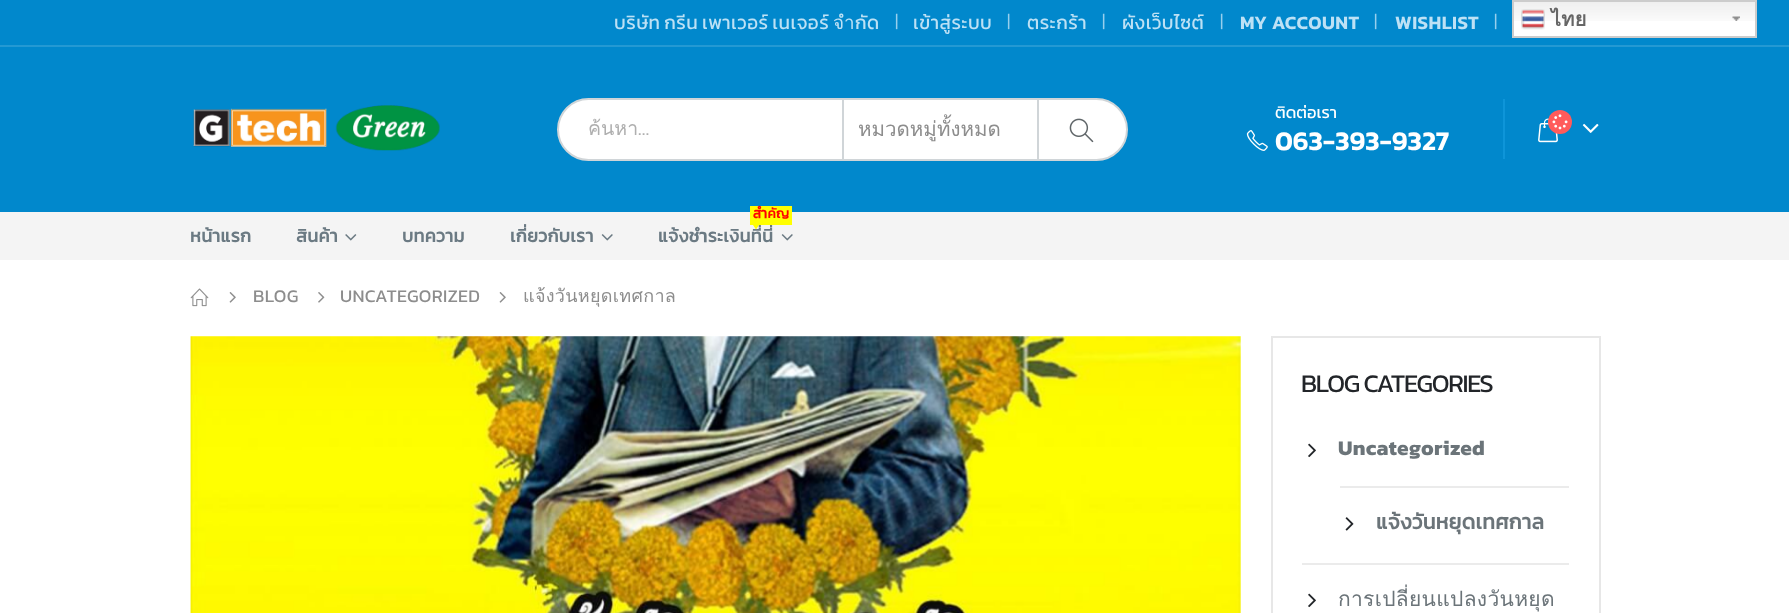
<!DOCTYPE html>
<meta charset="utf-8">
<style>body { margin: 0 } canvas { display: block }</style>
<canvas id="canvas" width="1789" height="613"></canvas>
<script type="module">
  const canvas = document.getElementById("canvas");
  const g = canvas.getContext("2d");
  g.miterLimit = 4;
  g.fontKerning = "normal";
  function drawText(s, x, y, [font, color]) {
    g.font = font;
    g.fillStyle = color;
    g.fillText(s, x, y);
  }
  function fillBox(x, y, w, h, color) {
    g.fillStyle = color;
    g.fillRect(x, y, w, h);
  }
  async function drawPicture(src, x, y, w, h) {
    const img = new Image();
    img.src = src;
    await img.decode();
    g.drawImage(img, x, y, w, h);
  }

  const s1 = ["18.9px 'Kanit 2'", "#BDE1F5"];
  const s2 = ["300 18px Kanit", "#97CFED"];
  const s3 = ["600 18.9px Kanit", "#BDE1F5"];
  const s4 = ["bold 20px Loma", "#666666"];
  const s5 = ["19.5px Loma", "#AFAFAF"];
  const s6 = ["19.5px Kanit", "#AFAFAF"];
  const s7 = ["20.5px Loma", "#8D8D8D"];
  const s8 = ["16.5px 'Kanit 2'", "#FFFFFF"];
  const s9 = ["600 27px Kanit", "#FFFFFF"];
  const s10 = ["bold 18px Kanit", "#6B7A83"];
  const s11 = ["bold 13.5px Kanit", "#FF0000"];
  const s12 = ["18px Kanit", "#8D8D8D"];
  const s13 = ["18px Loma", "#8D8D8D"];
  const s14 = ["25.5px Kanit", "#222529"];
  const s15 = ["bold 21px 'Kanit 2'", "#6B7479"];
  const s16 = ["bold 21px Kanit", "#6B7479"];
  const s17 = ["21px Loma", "#6B7479"];

  fillBox(0, 0, 1789, 613, "#FFFFFF");
  fillBox(0, 0, 1789, 45, "#0188CC");
  fillBox(0, 45, 1789, 2, "#2499D3");
  g.letterSpacing = "0.45px";
  g.wordSpacing = "-1px";
  drawText("บริษัท กรีน เพาเวอร์ เนเจอร์ จำกัด", 614, 29, s1);
  g.letterSpacing = "0.3px";
  g.wordSpacing = "0px";
  drawText("|", 895, 27, s2);
  g.letterSpacing = "0.45px";
  drawText("เข้าสู่ระบบ", 913, 29, s1);
  g.letterSpacing = "0.3px";
  drawText("|", 1007, 27, s2);
  g.letterSpacing = "0.45px";
  drawText("ตระกร้า", 1027, 29, s1);
  g.letterSpacing = "0.3px";
  drawText("|", 1102, 27, s2);
  g.letterSpacing = "0.45px";
  drawText("ผังเว็บไซต์", 1122, 29, s1);
  g.letterSpacing = "0.3px";
  drawText("|", 1220, 27, s2);
  g.letterSpacing = "0.45px";
  drawText("MY ACCOUNT", 1240, 29, s3);
  g.letterSpacing = "0.3px";
  drawText("|", 1374, 27, s2);
  g.letterSpacing = "0.45px";
  drawText("WISHLIST", 1395, 29, s3);
  g.letterSpacing = "0.3px";
  drawText("|", 1494, 27, s2);
  fillBox(1514, 21, 241, 15, "#FFFFFF");
  await drawPicture("pic1.png", 1514, 2, 241, 19);
  await drawPicture("pic2.png", 1732, 16, 8, 5);
  g.strokeStyle = "#CCCCCC";
  g.lineWidth = 2;
  g.strokeRect(1513, 1, 243, 36);
  await drawPicture("pic3.png", 1521, 9, 24, 21);
  drawText("ไทย", 1551, 26, s4);
  fillBox(0, 47, 1789, 165, "#0188CC");
  await drawPicture("pic4.png", 193, 105, 247, 46);
  g.fillStyle = "#FFFFFF";
  g.beginPath();
  g.roundRect(558, 99, 569, 61, 30.5);
  g.fill();
  g.strokeStyle = "#D0D5D8";
  g.stroke();
  fillBox(842, 99, 2, 60, "#D0D5D8");
  g.save();
  g.beginPath();
  g.rect(588, 113, 231, 31);
  g.clip();
  g.letterSpacing = "0px";
  drawText("ค้นหา", 588, 135, s5);
  g.restore();
  g.letterSpacing = "0px";
  drawText("…", 638, 135, s6);
  fillBox(1037, 99, 2, 60, "#D0D5D8");
  drawText("หมวดหมู่ทั้งหมด", 858, 136, s7);
  await drawPicture("pic5.png", 1069, 118, 25, 25);
  fillBox(1503, 99, 2, 60, "#0E95D9");
  await drawPicture("pic6.png", 1246, 130, 22, 21);
  drawText("ติดต่อเรา", 1275, 118, s8);
  drawText("063-393-9327", 1275, 150, s9);
  await drawPicture("pic8.png", 1538, 118, 20, 25);
  g.fillStyle = "#FF5B5B";
  g.beginPath();
  g.arc(1560, 122, 12, 0, Math.PI * 2);
  g.fill();
  await drawPicture("pic7.png", 1552, 114, 16, 16);
  await drawPicture("pic9.png", 1582, 123, 17, 10);
  fillBox(0, 212, 1789, 48, "#F4F4F4");
  g.letterSpacing = "0.3px";
  drawText("หน้าแรก", 190, 242, s10);
  drawText("สินค้า", 296, 242, s10);
  await drawPicture("pic10.png", 345, 234, 12, 7);
  drawText("บทความ", 402, 242, s10);
  drawText("เกี่ยวกับเรา", 510, 242, s10);
  await drawPicture("pic11.png", 601, 234, 12, 7);
  drawText("แจ้งชำระเงินที่นี่", 658, 242, s10);
  fillBox(750, 206, 42, 19, "#FFFF00");
  drawText("สำคัญ", 753, 218, s11);
  g.fillStyle = "#FFFF00";
  g.beginPath();
  g.moveTo(753, 225);
  g.lineTo(759, 225);
  g.lineTo(756, 229.5);
  g.closePath();
  g.fill();
  await drawPicture("pic11.png", 781, 234, 12, 7);
  await drawPicture("pic12.png", 190, 288, 19, 19);
  await drawPicture("pic13.png", 229, 292, 7, 11);
  drawText("BLOG", 253, 302, s12);
  await drawPicture("pic14.png", 318, 292, 7, 11);
  drawText("UNCATEGORIZED", 340, 302, s12);
  await drawPicture("pic13.png", 499, 292, 7, 11);
  drawText("แจ้งวันหยุดเทศกาล", 523, 302, s13);
  await drawPicture("pic15.png", 190, 336, 1051, 277);
  g.strokeStyle = "#E7E7E7";
  g.strokeRect(1272, 337, 328, 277);
  g.letterSpacing = "-1.25px";
  drawText("BLOG CATEGORIES", 1301, 392, s14);
  await drawPicture("pic16.png", 1308, 443, 8, 15);
  g.letterSpacing = "0.3px";
  drawText("Uncategorized", 1338, 455, s15);
  fillBox(1340, 486, 229, 2, "#EBEBEB");
  await drawPicture("pic17.png", 1345, 517, 9, 14);
  drawText("แจ้งวันหยุดเทศกาล", 1376, 529, s16);
  fillBox(1302, 563, 267, 2, "#EBEBEB");
  await drawPicture("pic16.png", 1308, 593, 8, 15);
  drawText("การเปลี่ยนแปลงวันหยุด", 1338, 606, s17);
</script>
